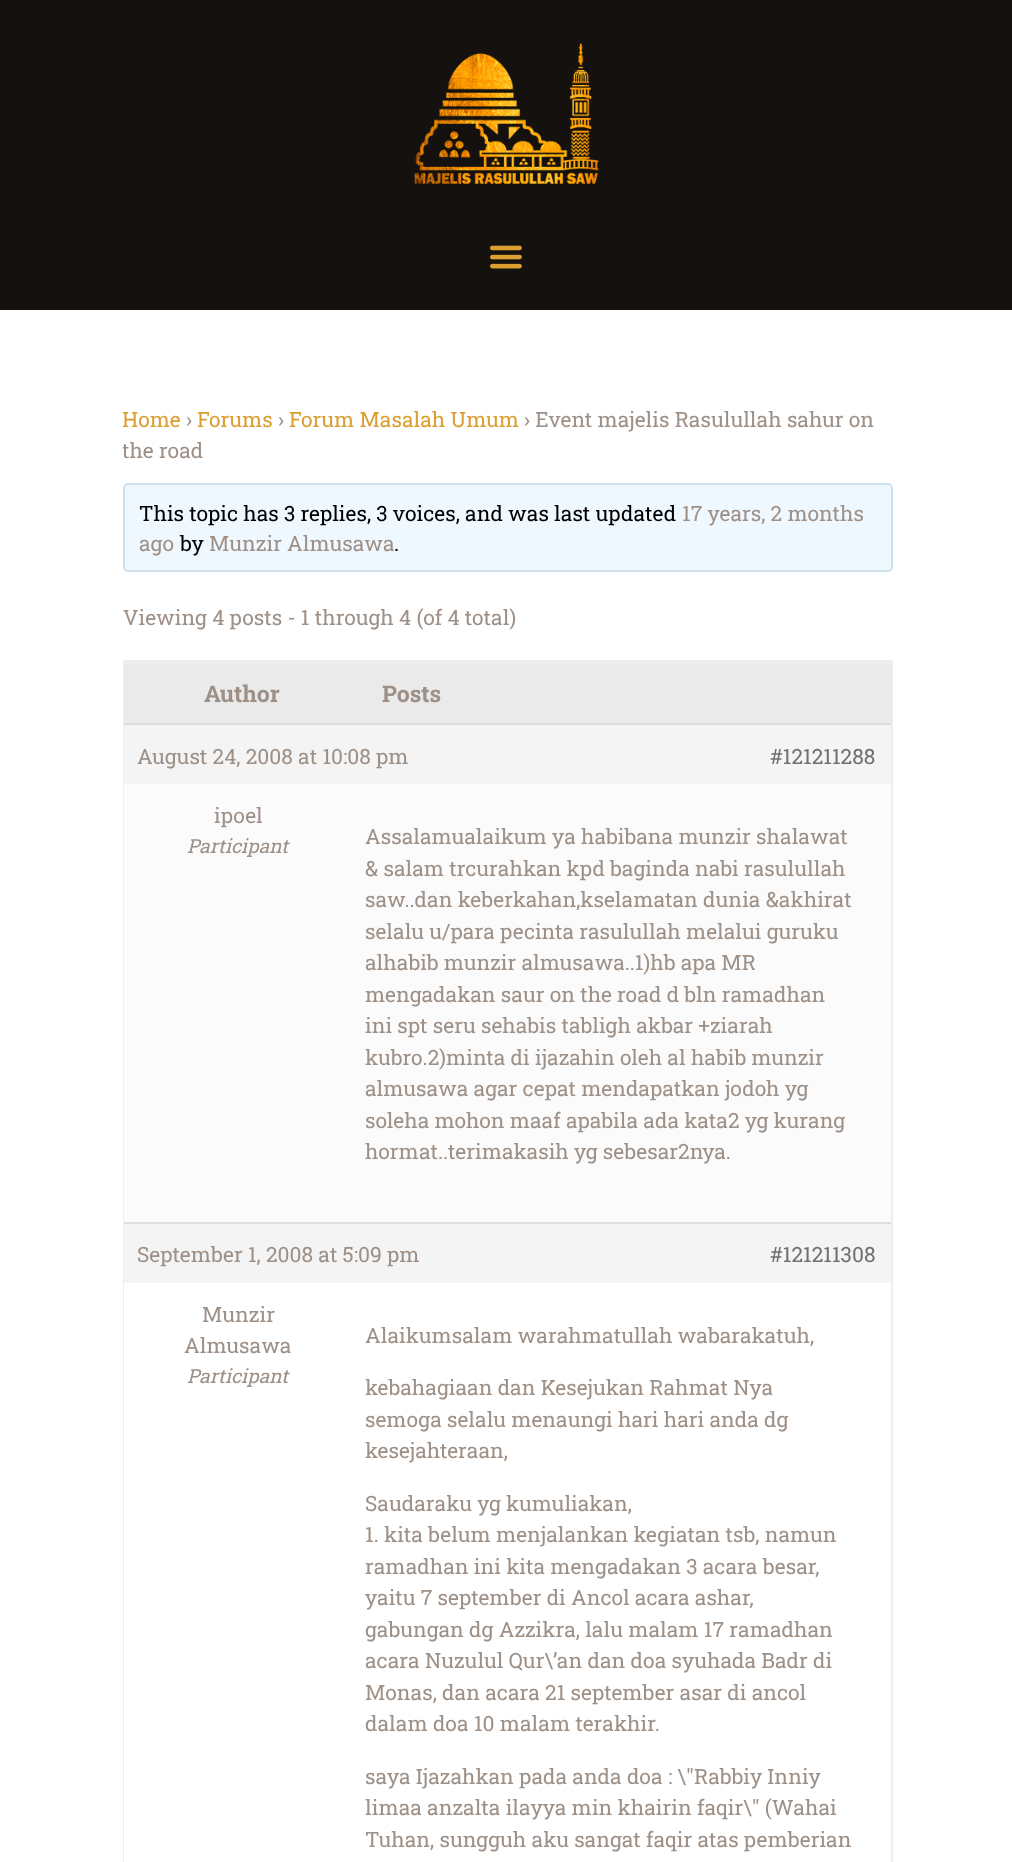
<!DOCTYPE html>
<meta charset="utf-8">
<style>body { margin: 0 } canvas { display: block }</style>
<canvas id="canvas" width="1012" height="1862"></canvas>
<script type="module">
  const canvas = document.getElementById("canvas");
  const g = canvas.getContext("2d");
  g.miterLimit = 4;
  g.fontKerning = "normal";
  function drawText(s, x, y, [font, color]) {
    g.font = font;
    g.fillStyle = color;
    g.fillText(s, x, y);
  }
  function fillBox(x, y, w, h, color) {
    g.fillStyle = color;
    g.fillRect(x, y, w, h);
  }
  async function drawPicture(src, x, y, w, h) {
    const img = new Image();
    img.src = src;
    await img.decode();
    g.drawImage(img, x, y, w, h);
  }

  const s1 = ["21px Roboto Slab", "#DB9E30"];
  const s2 = ["21px Roboto Slab", "#9D9087"];
  const s3 = ["21px Roboto Slab", "#000000"];
  const s4 = ["bold 23px Roboto Slab", "#9D9087"];
  const s5 = ["21px Roboto Slab", "#707070"];
  const s6 = ["italic 19.25px Roboto Slab", "#9D9087"];

  fillBox(0, 0, 1012, 1862, "#FFFFFF");
  fillBox(0, 0, 1012, 310, "#15110E");
  await drawPicture("pic1.png", 414, 43, 185, 141);
  await drawPicture("pic2.png", 490, 245, 32, 24);
  g.save();
  g.beginPath();
  g.rect(123, 403, 770, 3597);
  g.clip();
  drawText("Home", 122, 427, s1);
  g.restore();
  drawText("›", 186, 427, s2);
  drawText("Forums", 197, 427, s1);
  drawText("›", 278, 427, s2);
  drawText("Forum Masalah Umum", 289, 427, s1);
  drawText("› Event majelis Rasulullah sahur on", 524, 427, s2);
  g.save();
  g.beginPath();
  g.rect(123, 403, 770, 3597);
  g.clip();
  drawText("the road", 122, 458, s2);
  g.restore();
  g.fillStyle = "#F0F8FF";
  g.beginPath();
  g.roundRect(124, 484, 768, 87, 4);
  g.fill();
  g.strokeStyle = "#CEE1EF";
  g.lineWidth = 2;
  g.stroke();
  drawText("This topic has 3 replies, 3 voices, and was last updated", 139, 521, s3);
  drawText("17 years, 2 months", 682, 521, s2);
  drawText("ago", 139, 551, s2);
  drawText("by", 180, 551, s3);
  drawText("Munzir Almusawa", 209, 551, s2);
  drawText(".", 394, 551, s3);
  drawText("Viewing 4 posts - 1 through 4 (of 4 total)", 123, 625, s2);
  g.strokeStyle = "#EEEEEE";
  g.strokeRect(124, 661, 768, 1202);
  fillBox(124, 664, 767, 59, "#EAEAEA");
  fillBox(124, 662, 767, 2, "#EEEEEE");
  drawText("Author", 204, 702, s4);
  drawText("Posts", 382, 702, s4);
  fillBox(124, 725, 767, 59, "#F4F4F4");
  fillBox(124, 723, 767, 2, "#DDDDDD");
  drawText("August 24, 2008 at 10:08 pm", 137, 764, s2);
  drawText("#121211288", 770, 764, s5);
  fillBox(124, 784, 767, 438, "#FBFBFB");
  drawText("ipoel", 214, 823, s2);
  drawText("Participant", 187, 853, s6);
  drawText("Assalamualaikum ya habibana munzir shalawat", 365, 844, s2);
  drawText("& salam trcurahkan kpd baginda nabi rasulullah", 365, 876, s2);
  drawText("saw..dan keberkahan,kselamatan dunia &akhirat", 365, 907, s2);
  drawText("selalu u/para pecinta rasulullah melalui guruku", 365, 939, s2);
  drawText("alhabib munzir almusawa..1)hb apa MR", 365, 970, s2);
  drawText("mengadakan saur on the road d bln ramadhan", 365, 1002, s2);
  drawText("ini spt seru sehabis tabligh akbar +ziarah", 365, 1033, s2);
  drawText("kubro.2)minta di ijazahin oleh al habib munzir", 365, 1065, s2);
  drawText("almusawa agar cepat mendapatkan jodoh yg", 365, 1096, s2);
  drawText("soleha mohon maaf apabila ada kata2 yg kurang", 365, 1128, s2);
  drawText("hormat..terimakasih yg sebesar2nya.", 365, 1159, s2);
  fillBox(124, 1224, 767, 59, "#F4F4F4");
  fillBox(124, 1222, 767, 2, "#DDDDDD");
  drawText("September 1, 2008 at 5:09 pm", 137, 1262, s2);
  drawText("#121211308", 770, 1262, s5);
  fillBox(124, 1283, 1, 579, "#FFFFFF");
  drawText("Munzir", 202, 1322, s2);
  drawText("Almusawa", 184, 1353, s2);
  drawText("Participant", 187, 1383, s6);
  drawText("Alaikumsalam warahmatullah wabarakatuh,", 365, 1343, s2);
  drawText("kebahagiaan dan Kesejukan Rahmat Nya", 365, 1395, s2);
  drawText("semoga selalu menaungi hari hari anda dg", 365, 1427, s2);
  drawText("kesejahteraan,", 365, 1458, s2);
  drawText("Saudaraku yg kumuliakan,", 365, 1511, s2);
  drawText("1. kita belum menjalankan kegiatan tsb, namun", 365, 1542, s2);
  drawText("ramadhan ini kita mengadakan 3 acara besar,", 365, 1574, s2);
  drawText("yaitu 7 september di Ancol acara ashar,", 365, 1605, s2);
  drawText("gabungan dg Azzikra, lalu malam 17 ramadhan", 365, 1637, s2);
  drawText("acara Nuzulul Qur\\’an dan doa syuhada Badr di", 365, 1668, s2);
  drawText("Monas, dan acara 21 september asar di ancol", 365, 1700, s2);
  drawText("dalam doa 10 malam terakhir.", 365, 1731, s2);
  drawText("saya Ijazahkan pada anda doa : \\\"Rabbiy Inniy", 365, 1784, s2);
  drawText("limaa anzalta ilayya min khairin faqir\\\" (Wahai", 365, 1815, s2);
  drawText("Tuhan, sungguh aku sangat faqir atas pemberian", 365, 1847, s2);
</script>
